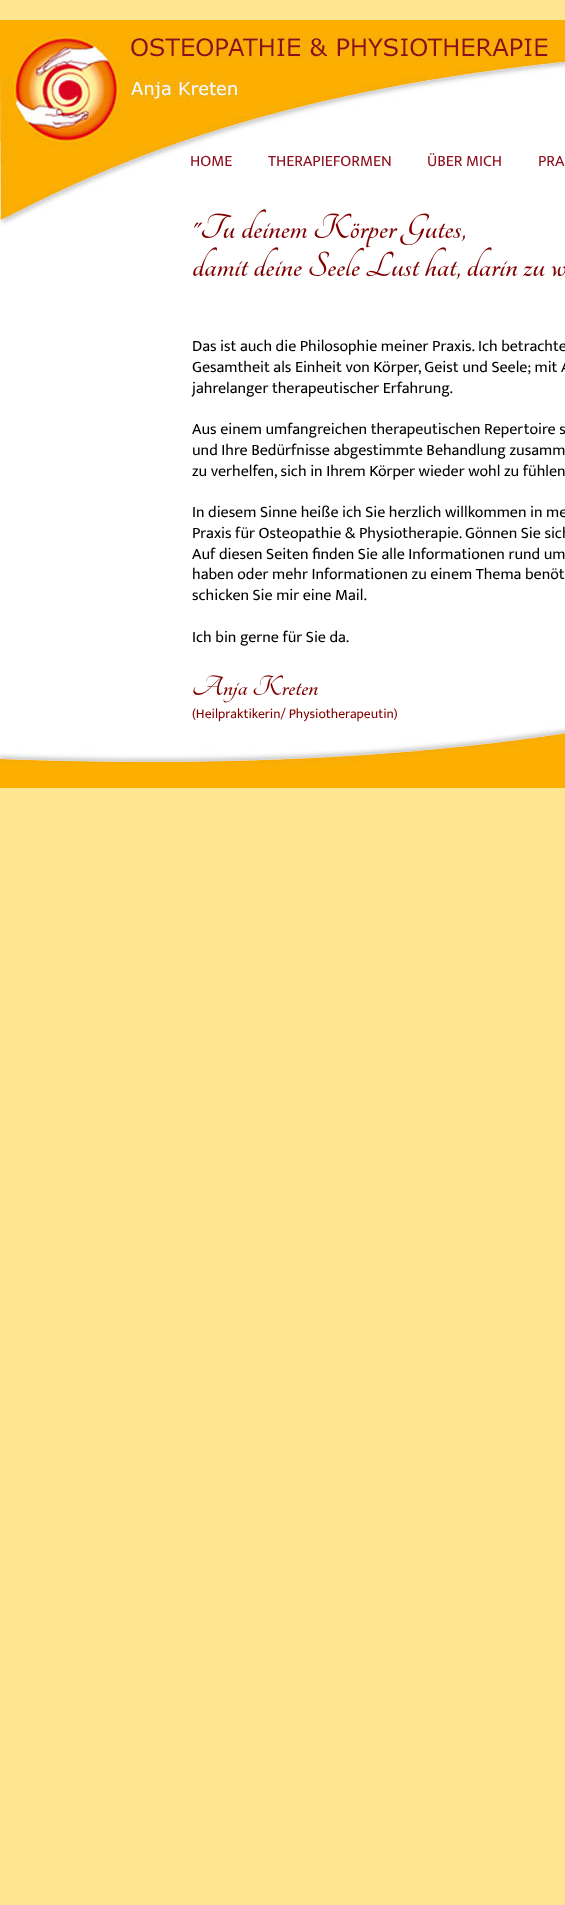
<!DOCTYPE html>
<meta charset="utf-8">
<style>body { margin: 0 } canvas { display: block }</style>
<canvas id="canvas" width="565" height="1905"></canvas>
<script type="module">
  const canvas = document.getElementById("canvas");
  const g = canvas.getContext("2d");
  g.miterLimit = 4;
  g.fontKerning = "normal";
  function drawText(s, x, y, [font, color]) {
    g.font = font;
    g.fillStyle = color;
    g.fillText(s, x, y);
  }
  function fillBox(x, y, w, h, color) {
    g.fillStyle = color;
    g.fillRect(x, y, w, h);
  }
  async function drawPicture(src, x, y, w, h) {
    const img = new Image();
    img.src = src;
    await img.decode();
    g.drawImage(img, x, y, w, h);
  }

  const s1 = ["16px Ek Mukta", "#8E0E1D"];
  const s2 = ["bold 38px Tangerine", "#800000"];
  const s3 = ["16px Ek Mukta", "#000000"];
  const s4 = ["bold 30.5px Tangerine", "#800000"];
  const s5 = ["13.7px Ek Mukta", "#800000"];

  fillBox(0, 0, 565, 1905, "#FFE590");
  await drawPicture("pic1.png", 0, 20, 565, 768);
  drawText("HOME", 190, 166, s1);
  drawText("THERAPIEFORMEN", 268, 166, s1);
  drawText("ÜBER MICH", 427, 166, s1);
  drawText("PRA", 538, 166, s1);
  drawText("\"Tu deinem Körper Gutes,", 192, 238, s2);
  drawText("damit deine Seele Lust hat, darin zu w", 192, 276, s2);
  drawText("Das ist auch die Philosophie meiner Praxis. Ich betrachte", 192, 351, s3);
  drawText("Gesamtheit als Einheit von Körper, Geist und Seele; mit A", 192, 372, s3);
  drawText("jahrelanger therapeutischer Erfahrung.", 192, 393, s3);
  drawText("Aus einem umfangreichen therapeutischen Repertoire s", 192, 434, s3);
  drawText("und Ihre Bedürfnisse abgestimmte Behandlung zusamm", 192, 455, s3);
  drawText("zu verhelfen, sich in Ihrem Körper wieder wohl zu fühlen", 192, 476, s3);
  drawText("In diesem Sinne heiße ich Sie herzlich willkommen in me", 192, 517, s3);
  drawText("Praxis für Osteopathie & Physiotherapie. Gönnen Sie sich", 192, 538, s3);
  drawText("Auf diesen Seiten finden Sie alle Informationen rund um", 192, 559, s3);
  drawText("haben oder mehr Informationen zu einem Thema benöt", 192, 579, s3);
  drawText("schicken Sie mir eine Mail.", 192, 600, s3);
  drawText("Ich bin gerne für Sie da.", 192, 642, s3);
  drawText("Anja Kreten", 192, 695, s4);
  drawText("(Heilpraktikerin/ Physiotherapeutin)", 192, 718, s5);
</script>
